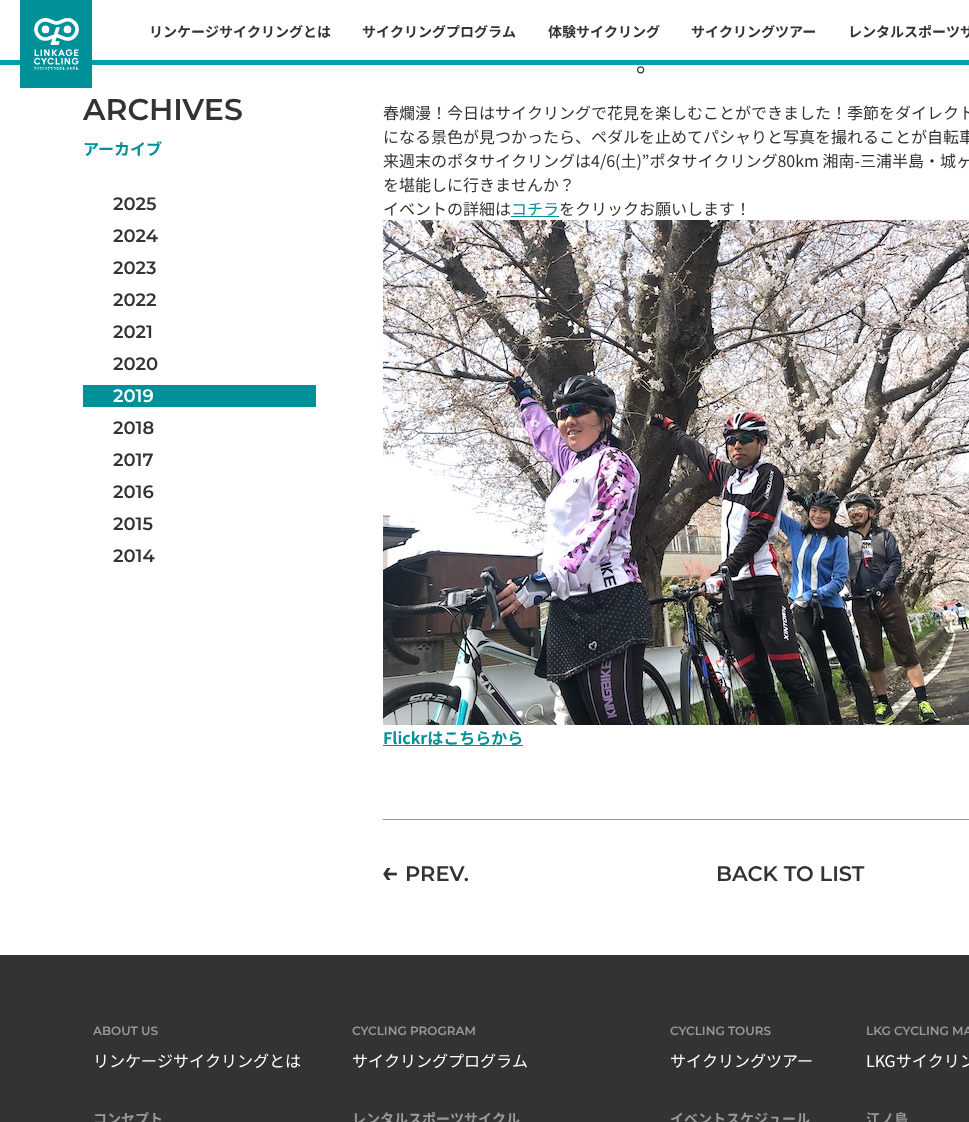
<!DOCTYPE html>
<meta charset="utf-8">
<style>body { margin: 0 } canvas { display: block }</style>
<canvas id="canvas" width="969" height="1122"></canvas>
<script type="module">
  const canvas = document.getElementById("canvas");
  const g = canvas.getContext("2d");
  g.miterLimit = 4;
  g.fontKerning = "normal";
  function drawText(s, x, y, [font, color]) {
    g.font = font;
    g.fillStyle = color;
    g.fillText(s, x, y);
  }
  function fillBox(x, y, w, h, color) {
    g.fillStyle = color;
    g.fillRect(x, y, w, h);
  }
  async function drawPicture(src, x, y, w, h) {
    const img = new Image();
    img.src = src;
    await img.decode();
    g.drawImage(img, x, y, w, h);
  }

  const s1 = ["bold 14px Noto Sans JP", "#333333"];
  const s2 = ["600 30px Montserrat", "#333333"];
  const s3 = ["bold 16px Noto Sans JP", "#009098"];
  const s4 = ["600 18px Montserrat", "#333333"];
  const s5 = ["600 18px Montserrat", "#FFFFFF"];
  const s6 = ["24px Noto Sans JP", "#333333"];
  const s7 = ["16px Noto Sans JP", "#333333"];
  const s8 = ["16px Noto Sans JP", "#009098"];
  const s9 = ["600 21px Montserrat", "#333333"];
  const s10 = ["600 12px Montserrat", "#999999"];
  const s11 = ["16px Noto Sans JP", "#FFFFFF"];
  const s12 = ["bold 14px Noto Sans JP", "#999999"];

  fillBox(0, 0, 969, 1122, "#FFFFFF");
  fillBox(0, 60, 969, 5, "#01A0A8");
  fillBox(20, 0, 72, 88, "#009098");
  await drawPicture("pic1.png", 34, 18, 45, 52);
  drawText("リンケージサイクリングとは", 149, 37, s1);
  drawText("サイクリングプログラム", 362, 37, s1);
  drawText("体験サイクリング", 548, 37, s1);
  drawText("サイクリングツアー", 691, 37, s1);
  drawText("レンタルスポーツサ", 848, 37, s1);
  drawText("ARCHIVES", 83, 120, s2);
  drawText("アーカイブ", 83, 155, s3);
  drawText("2025", 113, 210, s4);
  drawText("2024", 113, 242, s4);
  drawText("2023", 113, 274, s4);
  drawText("2022", 113, 306, s4);
  drawText("2021", 113, 338, s4);
  drawText("2020", 113, 370, s4);
  fillBox(83, 385, 233, 22, "#009098");
  drawText("2019", 113, 402, s5);
  drawText("2018", 113, 434, s4);
  drawText("2017", 113, 466, s4);
  drawText("2016", 113, 498, s4);
  drawText("2015", 113, 530, s4);
  drawText("2014", 113, 562, s4);
  drawText("。", 636, 72, s6);
  drawText("春爛漫！今日はサイクリングで花見を楽しむことができました！季節をダイレクト", 383, 119, s7);
  drawText("になる景色が見つかったら、ペダルを止めてパシャりと写真を撮れることが自転車", 383, 143, s7);
  drawText("来週末のポタサイクリングは4/6(土)”ポタサイクリング80km 湘南-三浦半島・城ヶ", 383, 167, s7);
  drawText("を堪能しに行きませんか？", 383, 191, s7);
  drawText("イベントの詳細は", 383, 215, s7);
  drawText("コチラ", 511, 215, s8);
  fillBox(511, 216, 48, 1, "#009098");
  drawText("をクリックお願いします！", 559, 215, s7);
  await drawPicture("pic2.png", 383, 220, 586, 505);
  drawText("Flickrはこちらから", 383, 744, s3);
  fillBox(383, 745, 140, 1, "#009098");
  fillBox(383, 819, 586, 1, "#999999");
  await drawPicture("pic3.png", 383, 868, 14, 12);
  drawText("PREV.", 405, 881, s9);
  drawText("BACK TO LIST", 716, 881, s9);
  fillBox(0, 955, 969, 167, "#333333");
  drawText("ABOUT US", 93, 1035, s10);
  drawText("リンケージサイクリングとは", 93, 1067, s11);
  drawText("コンセプト", 93, 1124, s12);
  drawText("CYCLING PROGRAM", 352, 1035, s10);
  drawText("サイクリングプログラム", 352, 1067, s11);
  drawText("レンタルスポーツサイクル", 352, 1124, s12);
  drawText("CYCLING TOURS", 670, 1035, s10);
  drawText("サイクリングツアー", 670, 1067, s11);
  drawText("イベントスケジュール", 670, 1124, s12);
  drawText("LKG CYCLING MA", 866, 1035, s10);
  drawText("LKGサイクリン", 866, 1067, s11);
  drawText("江ノ島", 866, 1124, s12);
</script>
